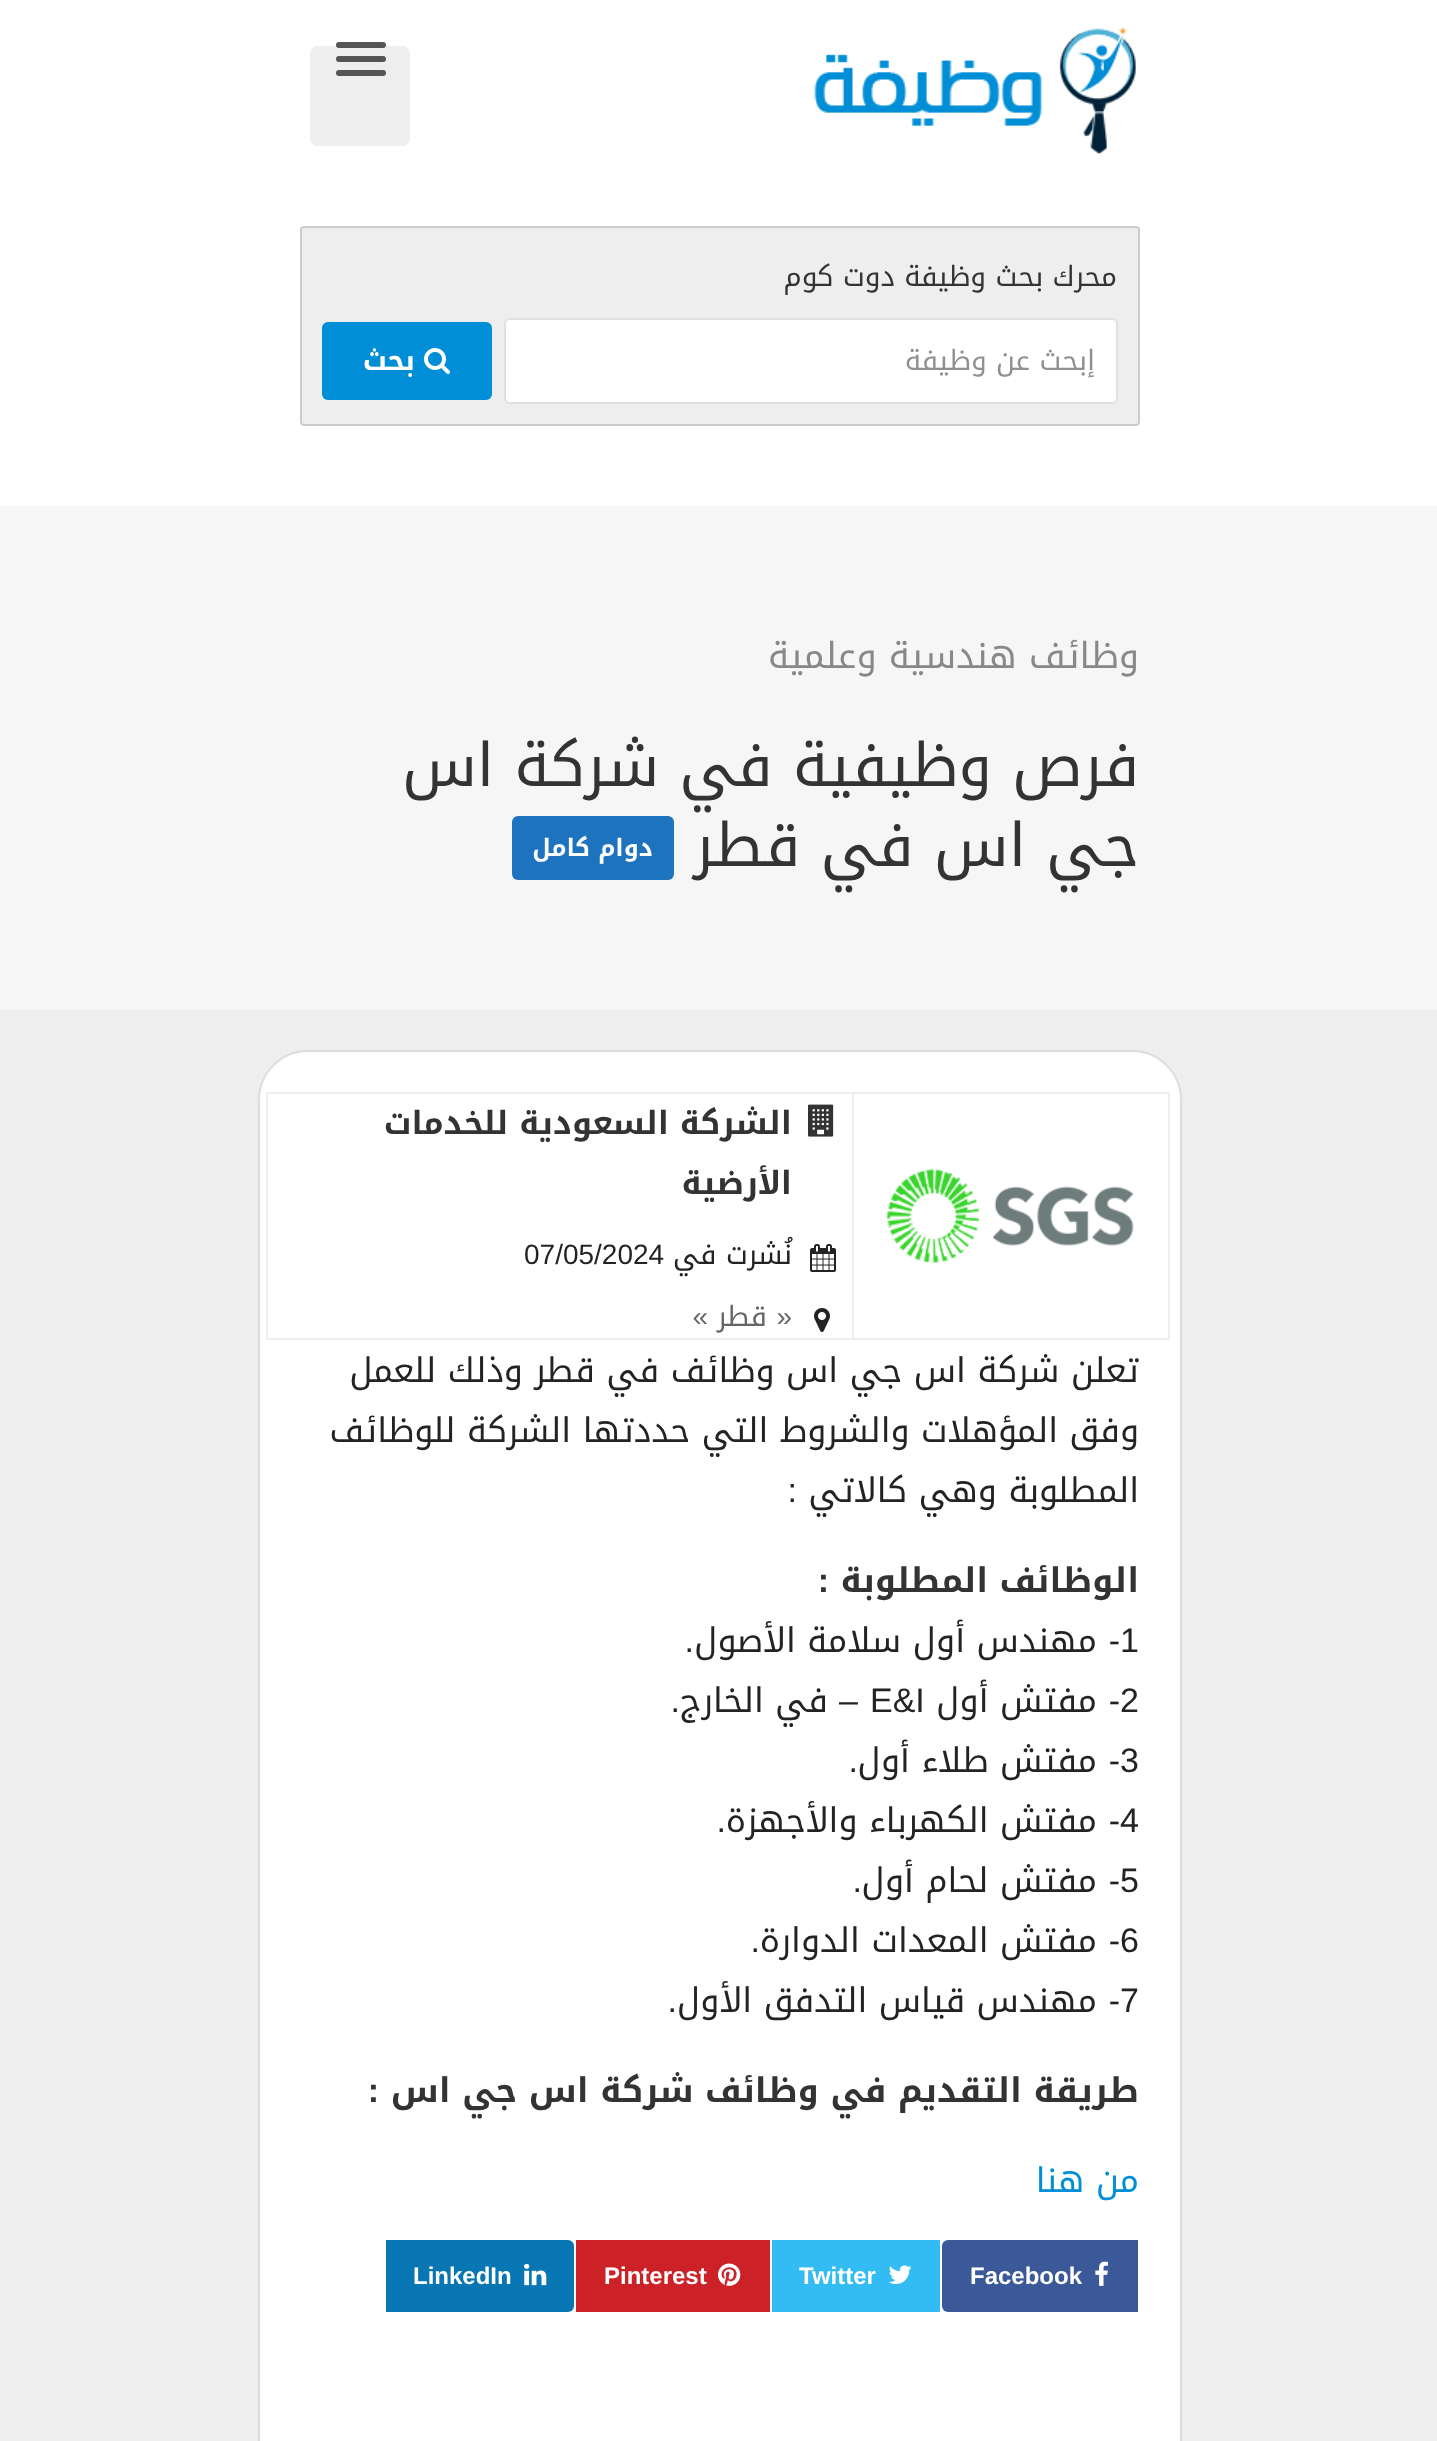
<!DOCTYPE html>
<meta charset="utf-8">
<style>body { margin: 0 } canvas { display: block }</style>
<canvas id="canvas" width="1437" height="2441"></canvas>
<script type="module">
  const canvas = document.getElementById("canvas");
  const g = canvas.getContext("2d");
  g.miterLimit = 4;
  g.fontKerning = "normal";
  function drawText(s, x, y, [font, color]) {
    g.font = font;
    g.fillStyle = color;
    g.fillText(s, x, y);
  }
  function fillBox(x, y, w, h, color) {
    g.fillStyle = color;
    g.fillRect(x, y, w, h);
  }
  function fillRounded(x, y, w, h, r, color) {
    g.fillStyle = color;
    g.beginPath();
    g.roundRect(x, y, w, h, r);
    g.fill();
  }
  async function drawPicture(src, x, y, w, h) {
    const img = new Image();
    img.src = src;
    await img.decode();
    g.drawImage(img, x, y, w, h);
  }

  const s1 = ["28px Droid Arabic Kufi", "#333333"];
  const s2 = ["28px Droid Arabic Kufi", "#909090"];
  const s3 = ["bold 28px Droid Arabic Kufi", "#FFFFFF"];
  const s4 = ["36px Droid Arabic Kufi", "#888888"];
  const s5 = ["60px Droid Arabic Kufi", "#333333"];
  const s6 = ["bold 24px Droid Arabic Kufi", "#FFFFFF"];
  const s7 = ["bold 32px Droid Arabic Kufi", "#333333"];
  const s8 = ["28px Droid Arabic Kufi", "#232323"];
  const s9 = ["28px Liberation Sans", "#232323"];
  const s10 = ["28px Liberation Sans", "#666666"];
  const s11 = ["28px Droid Arabic Kufi", "#666666"];
  const s12 = ["34px Droid Arabic Kufi", "#232323"];
  const s13 = ["34px Liberation Sans", "#232323"];
  const s14 = ["bold 34px Droid Arabic Kufi", "#333333"];
  const s15 = ["bold 34px Liberation Sans", "#333333"];
  const s16 = ["34px Droid Arabic Kufi", "#008ED6"];
  const s17 = ["bold 24px Liberation Sans", "#FFFFFF"];

  fillBox(0, 0, 1437, 2441, "#FFFFFF");
  fillBox(0, 1010, 1437, 1431, "#EEEEEE");
  await drawPicture("pic1.png", 814, 27, 322, 127);
  fillRounded(310, 46, 100, 100, 8, "#EEEEEE");
  fillRounded(336, 70, 50, 6, 3, "#555555");
  fillRounded(336, 42, 50, 6, 3, "#555555");
  fillRounded(336, 56, 50, 6, 3, "#555555");
  g.fillStyle = "#EEEEEE";
  g.beginPath();
  g.roundRect(301, 227, 838, 198, 3);
  g.fill();
  g.strokeStyle = "#CCCCCC";
  g.lineWidth = 2;
  g.stroke();
  g.direction = "rtl";
  drawText("محرك بحث وظيفة دوت كوم", 1117, 286, s1);
  g.fillStyle = "#FFFFFF";
  g.beginPath();
  g.roundRect(505, 319, 612, 84, 5);
  g.fill();
  g.strokeStyle = "#E0E0E0";
  g.stroke();
  drawText("إبحث عن وظيفة", 1095, 370, s2);
  fillRounded(322, 322, 170, 78, 6, "#008ED6");
  await drawPicture("pic2.png", 424, 348, 26, 26);
  drawText("بحث", 415, 370, s3);
  fillBox(0, 506, 1437, 504, "#F6F6F6");
  drawText("وظائف هندسية وعلمية", 1139, 668, s4);
  drawText("فرص وظيفية في شركة اس", 1139, 786, s5);
  drawText("جي اس في قطر", 1139, 866, s5);
  fillRounded(512, 816, 162, 64, 6, "#1E73BE");
  drawText("دوام كامل", 653, 856, s6);
  g.beginPath();
  g.roundRect(259, 1051, 922, 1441, 49);
  g.fill();
  g.strokeStyle = "#DDDDDD";
  g.stroke();
  g.strokeStyle = "#EEEEEE";
  g.strokeRect(267, 1093, 902, 246);
  await drawPicture("pic3.png", 886, 1169, 248, 94);
  fillBox(852, 1094, 2, 244, "#EEEEEE");
  await drawPicture("pic4.png", 808, 1104, 26, 33);
  drawText("الشركة السعودية للخدمات", 792, 1134, s7);
  drawText("الأرضية", 792, 1194, s7);
  await drawPicture("pic5.png", 810, 1244, 26, 28);
  drawText("نُشرت في", 792, 1264, s8);
  g.direction = "ltr";
  drawText("07/05/2024", 524, 1264, s9);
  await drawPicture("pic6.png", 814, 1308, 16, 24);
  g.direction = "rtl";
  drawText("«", 792, 1326, s10);
  drawText("قطر", 767, 1326, s11);
  drawText("»", 708, 1326, s10);
  drawText("تعلن شركة اس جي اس وظائف في قطر وذلك للعمل", 1139, 1382, s12);
  drawText("وفق المؤهلات والشروط التي حددتها الشركة للوظائف", 1139, 1442, s12);
  drawText("المطلوبة وهي كالاتي", 1139, 1502, s12);
  drawText(":", 797, 1502, s13);
  drawText("الوظائف المطلوبة", 1139, 1592, s14);
  drawText(":", 829, 1592, s15);
  g.direction = "ltr";
  drawText("1", 1120, 1652, s13);
  g.direction = "rtl";
  drawText("-", 1120, 1652, s13);
  drawText("مهندس أول سلامة الأصول", 1097, 1652, s12);
  drawText(".", 694, 1652, s13);
  g.direction = "ltr";
  drawText("2", 1120, 1712, s13);
  g.direction = "rtl";
  drawText("-", 1120, 1712, s13);
  drawText("مفتش أول", 1097, 1712, s12);
  g.direction = "ltr";
  drawText("E&I", 870, 1712, s13);
  g.direction = "rtl";
  drawText("–", 858, 1712, s13);
  drawText("في الخارج", 828, 1712, s12);
  drawText(".", 680, 1712, s13);
  g.direction = "ltr";
  drawText("3", 1120, 1772, s13);
  g.direction = "rtl";
  drawText("-", 1120, 1772, s13);
  drawText("مفتش طلاء أول", 1097, 1772, s12);
  drawText(".", 858, 1772, s13);
  g.direction = "ltr";
  drawText("4", 1120, 1832, s13);
  g.direction = "rtl";
  drawText("-", 1120, 1832, s13);
  drawText("مفتش الكهرباء والأجهزة", 1097, 1832, s12);
  drawText(".", 726, 1832, s13);
  g.direction = "ltr";
  drawText("5", 1120, 1892, s13);
  g.direction = "rtl";
  drawText("-", 1120, 1892, s13);
  drawText("مفتش لحام أول", 1097, 1892, s12);
  drawText(".", 862, 1892, s13);
  g.direction = "ltr";
  drawText("6", 1120, 1952, s13);
  g.direction = "rtl";
  drawText("-", 1120, 1952, s13);
  drawText("مفتش المعدات الدوارة", 1097, 1952, s12);
  drawText(".", 760, 1952, s13);
  g.direction = "ltr";
  drawText("7", 1120, 2012, s13);
  g.direction = "rtl";
  drawText("-", 1120, 2012, s13);
  drawText("مهندس قياس التدفق الأول", 1097, 2012, s12);
  drawText(".", 677, 2012, s13);
  drawText("طريقة التقديم في وظائف شركة اس جي اس", 1139, 2102, s14);
  drawText(":", 379, 2102, s15);
  drawText("من هنا", 1139, 2192, s16);
  g.fillStyle = "#3B5998";
  g.beginPath();
  g.roundRect(942, 2240, 196, 72, [6, 0, 0, 6]);
  g.fill();
  await drawPicture("pic7.png", 1095, 2261, 13, 25);
  g.direction = "ltr";
  drawText("Facebook", 970, 2284, s17);
  fillBox(772, 2240, 168, 72, "#33BCF3");
  await drawPicture("pic8.png", 888, 2265, 24, 19);
  drawText("Twitter", 799, 2284, s17);
  fillBox(576, 2240, 194, 72, "#CC2127");
  await drawPicture("pic9.png", 718, 2263, 23, 23);
  drawText("Pinterest", 604, 2284, s17);
  g.fillStyle = "#0976B4";
  g.beginPath();
  g.roundRect(386, 2240, 188, 72, [0, 6, 6, 0]);
  g.fill();
  await drawPicture("pic10.png", 524, 2263, 23, 23);
  drawText("LinkedIn", 413, 2284, s17);
</script>
